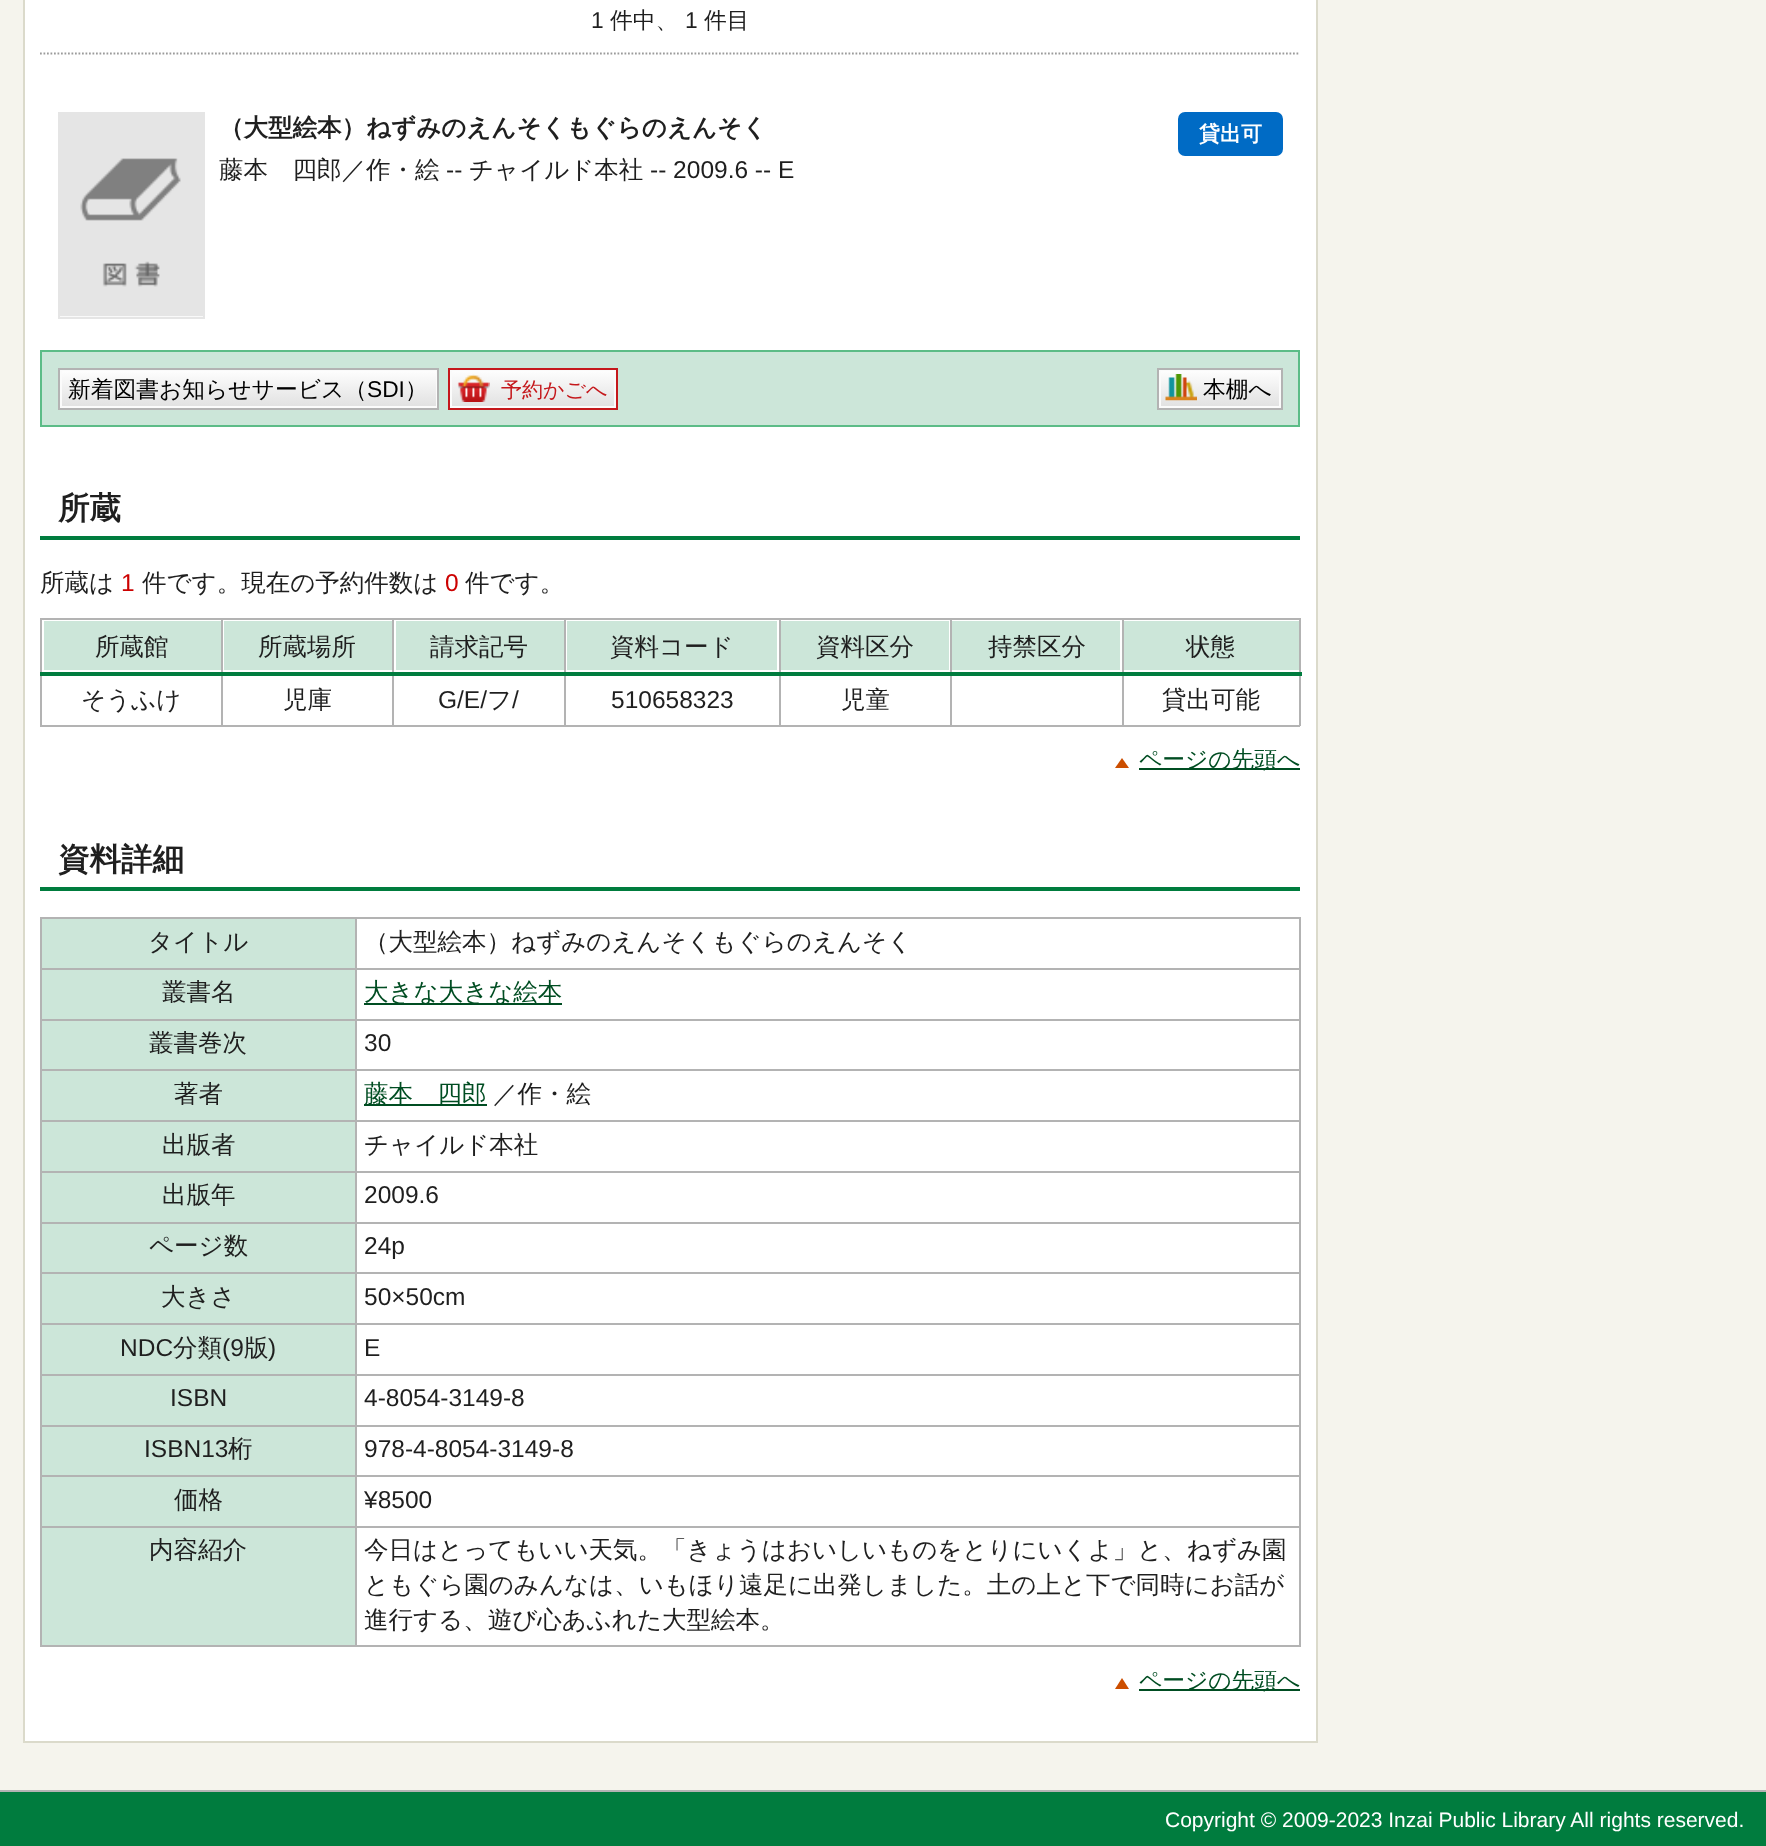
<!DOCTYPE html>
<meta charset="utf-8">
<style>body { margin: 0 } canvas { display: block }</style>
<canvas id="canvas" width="1766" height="1846"></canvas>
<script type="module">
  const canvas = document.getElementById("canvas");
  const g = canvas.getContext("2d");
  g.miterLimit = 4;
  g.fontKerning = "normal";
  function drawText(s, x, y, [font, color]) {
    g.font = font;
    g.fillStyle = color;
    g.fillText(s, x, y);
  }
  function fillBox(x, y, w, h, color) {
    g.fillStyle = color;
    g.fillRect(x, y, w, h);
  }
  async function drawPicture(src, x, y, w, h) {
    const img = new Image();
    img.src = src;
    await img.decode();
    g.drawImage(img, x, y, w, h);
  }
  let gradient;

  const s1 = ["22.75px Liberation Sans", "#1F1F1F"];
  const s2 = ["500 22.75px WenQuanYi Zen Hei", "#1F1F1F"];
  const s3 = ["bold 24.5px WenQuanYi Zen Hei", "#1F1F1F"];
  const s4 = ["bold 21px WenQuanYi Zen Hei", "#FFFFFF"];
  const s5 = ["500 24.5px WenQuanYi Zen Hei", "#1F1F1F"];
  const s6 = ["24.5px Liberation Sans", "#1F1F1F"];
  const s7 = ["500 22.75px WenQuanYi Zen Hei", "#000000"];
  const s8 = ["22.75px Liberation Sans", "#000000"];
  const s9 = ["500 21px WenQuanYi Zen Hei", "#C5181C"];
  const s10 = ["bold 31.5px WenQuanYi Zen Hei", "#1F1F1F"];
  const s11 = ["24.5px Liberation Sans", "#CC0100"];
  const s12 = ["500 22.75px WenQuanYi Zen Hei", "#004D22"];
  const s13 = ["500 24.5px WenQuanYi Zen Hei", "#004D22"];
  const s14 = ["21px Liberation Sans", "#FFFFFF"];

  fillBox(0, 0, 1766, 1846, "#F5F4ED");
  g.fillStyle = "#FFFFFF";
  g.beginPath();
  g.rect(24, -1, 1293, 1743);
  g.fill();
  g.strokeStyle = "#DBDACB";
  g.lineWidth = 2;
  g.stroke();
  g.beginPath();
  g.moveTo(40, 53.5);
  g.lineTo(1300, 53.5);
  g.strokeStyle = "#9B9B9B";
  g.lineWidth = 1.8;
  g.setLineDash([1.75, 1.75]);
  g.stroke();
  drawText("1", 591, 28, s1);
  drawText("件中、", 610, 28, s2);
  drawText("1", 685, 28, s1);
  drawText("件目", 704, 28, s2);
  g.strokeStyle = "#E5E5E5";
  g.lineWidth = 2;
  g.setLineDash([]);
  g.strokeRect(59, 113, 145, 205);
  await drawPicture("pic1.png", 60, 114, 143, 203);
  drawText("（大型絵本）ねずみのえんそくもぐらのえんそく", 219, 136, s3);
  g.fillStyle = "#006BC5";
  g.beginPath();
  g.roundRect(1180, 114, 101, 40, 5);
  g.fill();
  g.strokeStyle = "#006BC5";
  g.lineWidth = 4;
  g.stroke();
  drawText("貸出可", 1199, 141, s4);
  drawText("藤本　四郎／作・絵", 219, 178, s5);
  drawText("--", 446, 178, s6);
  drawText("チャイルド本社", 469, 178, s5);
  drawText("-- 2009.6 -- E", 650, 178, s6);
  g.fillStyle = "#CCE6D9";
  g.beginPath();
  g.rect(41, 351, 1258, 75);
  g.fill();
  g.strokeStyle = "#5CBC87";
  g.lineWidth = 2;
  g.stroke();
  gradient = g.createLinearGradient(249, 408, 249, 369);
  gradient.addColorStop(0, "#E0E0E0");
  gradient.addColorStop(1, "#FFFFFF");
  g.fillStyle = gradient;
  g.fillRect(62, 371, 374, 35);
  g.strokeStyle = "#FBFBFB";
  g.strokeRect(61, 370, 376, 37);
  g.strokeStyle = "#B3B3B3";
  g.strokeRect(59, 369, 379, 40);
  drawText("新着図書お知らせサービス（", 68, 397, s7);
  drawText("SDI", 367, 397, s8);
  drawText("）", 405, 397, s7);
  gradient = g.createLinearGradient(533, 408, 533, 369);
  gradient.addColorStop(0, "#E0E0E0");
  gradient.addColorStop(1, "#FFFFFF");
  g.fillStyle = gradient;
  g.fillRect(452, 371, 162, 35);
  g.strokeStyle = "#FBFBFB";
  g.strokeRect(451, 370, 164, 37);
  g.strokeStyle = "#C5181C";
  g.strokeRect(449, 369, 168, 40);
  await drawPicture("pic2.png", 457, 374, 33, 28);
  drawText("予約かごへ", 501, 397, s9);
  gradient = g.createLinearGradient(1220, 408, 1220, 369);
  gradient.addColorStop(0, "#E0E0E0");
  gradient.addColorStop(1, "#FFFFFF");
  g.fillStyle = gradient;
  g.fillRect(1161, 371, 118, 35);
  g.strokeStyle = "#FBFBFB";
  g.strokeRect(1160, 370, 120, 37);
  g.strokeStyle = "#B3B3B3";
  g.strokeRect(1158, 369, 124, 40);
  await drawPicture("pic3.png", 1165, 374, 32, 27);
  drawText("本棚へ", 1203, 397, s7);
  fillBox(40, 536, 1260, 4, "#007C3E");
  drawText("所蔵", 58, 519, s10);
  drawText("所蔵は", 40, 591, s5);
  drawText("1", 121, 591, s11);
  drawText("件です。現在の予約件数は", 142, 591, s5);
  drawText("0", 445, 591, s11);
  drawText("件です。", 465, 591, s5);
  fillBox(40, 618, 1260, 2, "#B3B3B3");
  fillBox(1299, 618, 2, 108, "#B3B3B3");
  fillBox(40, 725, 1260, 2, "#B3B3B3");
  fillBox(40, 618, 2, 108, "#B3B3B3");
  fillBox(44, 621, 177, 49, "#CCE6D9");
  drawText("所蔵館", 95, 655, s5);
  fillBox(224, 621, 168, 49, "#CCE6D9");
  drawText("所蔵場所", 258, 655, s5);
  fillBox(396, 621, 168, 49, "#CCE6D9");
  drawText("請求記号", 430, 655, s5);
  fillBox(567, 621, 210, 49, "#CCE6D9");
  drawText("資料コード", 610, 655, s5);
  fillBox(781, 621, 168, 49, "#CCE6D9");
  drawText("資料区分", 816, 655, s5);
  fillBox(952, 621, 168, 49, "#CCE6D9");
  drawText("持禁区分", 988, 655, s5);
  fillBox(1124, 621, 175, 49, "#CCE6D9");
  fillBox(221, 618, 2, 108, "#B3B3B3");
  fillBox(392, 618, 2, 108, "#B3B3B3");
  fillBox(564, 618, 2, 108, "#B3B3B3");
  fillBox(779, 618, 2, 108, "#B3B3B3");
  fillBox(950, 618, 2, 108, "#B3B3B3");
  fillBox(1122, 618, 2, 108, "#B3B3B3");
  fillBox(40, 672, 1262, 4, "#007C3E");
  drawText("状態", 1186, 655, s5);
  drawText("そうふけ", 81, 708, s5);
  drawText("児庫", 283, 708, s5);
  drawText("G/E/", 438, 708, s6);
  drawText("フ", 487, 708, s5);
  drawText("/", 512, 708, s6);
  drawText("510658323", 611, 708, s6);
  drawText("児童", 841, 708, s5);
  drawText("貸出可能", 1162, 708, s5);
  g.fillStyle = "#CC4E00";
  g.beginPath();
  g.moveTo(1129, 768);
  g.lineTo(1115, 768);
  g.lineTo(1122, 758);
  g.closePath();
  g.fill();
  fillBox(1139, 768, 161, 2, "#004D22");
  drawText("ページの先頭へ", 1139, 767, s12);
  fillBox(40, 887, 1260, 4, "#007C3E");
  drawText("資料詳細", 58, 870, s10);
  fillBox(40, 917, 1260, 2, "#B3B3B3");
  fillBox(1299, 917, 2, 730, "#B3B3B3");
  fillBox(40, 1645, 1260, 2, "#B3B3B3");
  fillBox(40, 917, 2, 730, "#B3B3B3");
  fillBox(42, 919, 313, 49, "#CCE6D9");
  drawText("タイトル", 148, 950, s5);
  fillBox(355, 968, 945, 2, "#B3B3B3");
  fillBox(355, 1019, 945, 2, "#B3B3B3");
  fillBox(355, 1069, 945, 2, "#B3B3B3");
  fillBox(355, 1120, 945, 2, "#B3B3B3");
  fillBox(355, 1171, 945, 2, "#B3B3B3");
  fillBox(355, 1222, 945, 2, "#B3B3B3");
  fillBox(355, 1272, 945, 2, "#B3B3B3");
  fillBox(355, 1323, 945, 2, "#B3B3B3");
  fillBox(355, 1374, 945, 2, "#B3B3B3");
  fillBox(355, 1425, 945, 2, "#B3B3B3");
  fillBox(355, 1475, 945, 2, "#B3B3B3");
  fillBox(355, 1526, 945, 2, "#B3B3B3");
  fillBox(355, 1526, 2, 121, "#B3B3B3");
  fillBox(40, 1526, 317, 2, "#B3B3B3");
  fillBox(355, 1475, 2, 53, "#B3B3B3");
  fillBox(40, 1475, 317, 2, "#B3B3B3");
  fillBox(355, 1425, 2, 52, "#B3B3B3");
  fillBox(40, 1425, 317, 2, "#B3B3B3");
  fillBox(355, 1374, 2, 52, "#B3B3B3");
  fillBox(40, 1374, 317, 2, "#B3B3B3");
  fillBox(355, 1323, 2, 53, "#B3B3B3");
  fillBox(40, 1323, 317, 2, "#B3B3B3");
  fillBox(355, 1272, 2, 53, "#B3B3B3");
  fillBox(40, 1272, 317, 2, "#B3B3B3");
  fillBox(355, 1222, 2, 52, "#B3B3B3");
  fillBox(40, 1222, 317, 2, "#B3B3B3");
  fillBox(355, 1171, 2, 52, "#B3B3B3");
  fillBox(40, 1171, 317, 2, "#B3B3B3");
  fillBox(355, 1120, 2, 53, "#B3B3B3");
  fillBox(40, 1120, 317, 2, "#B3B3B3");
  fillBox(355, 1069, 2, 53, "#B3B3B3");
  fillBox(40, 1069, 317, 2, "#B3B3B3");
  fillBox(355, 1019, 2, 52, "#B3B3B3");
  fillBox(40, 1019, 317, 2, "#B3B3B3");
  fillBox(355, 968, 2, 52, "#B3B3B3");
  fillBox(40, 968, 317, 2, "#B3B3B3");
  fillBox(355, 917, 2, 53, "#B3B3B3");
  drawText("（大型絵本）ねずみのえんそくもぐらのえんそく", 364, 950, s5);
  fillBox(42, 970, 313, 49, "#CCE6D9");
  drawText("叢書名", 162, 1000, s5);
  fillBox(364, 1003, 198, 2, "#004D22");
  drawText("大きな大きな絵本", 364, 1000, s13);
  fillBox(42, 1021, 313, 48, "#CCE6D9");
  drawText("叢書巻次", 149, 1051, s5);
  drawText("30", 364, 1051, s6);
  fillBox(42, 1071, 313, 49, "#CCE6D9");
  drawText("著者", 174, 1102, s5);
  fillBox(364, 1104, 123, 2, "#004D22");
  drawText("藤本　四郎", 364, 1102, s13);
  drawText("／作・絵", 493, 1102, s5);
  fillBox(42, 1122, 313, 49, "#CCE6D9");
  drawText("出版者", 162, 1153, s5);
  drawText("チャイルド本社", 364, 1153, s5);
  fillBox(42, 1173, 313, 49, "#CCE6D9");
  drawText("出版年", 162, 1203, s5);
  drawText("2009.6", 364, 1203, s6);
  fillBox(42, 1224, 313, 48, "#CCE6D9");
  drawText("ページ数", 149, 1254, s5);
  drawText("24p", 364, 1254, s6);
  fillBox(42, 1274, 313, 49, "#CCE6D9");
  drawText("大きさ", 161, 1305, s5);
  drawText("50×50cm", 364, 1305, s6);
  fillBox(42, 1325, 313, 49, "#CCE6D9");
  drawText("NDC", 120, 1356, s6);
  drawText("分類", 173, 1356, s5);
  drawText("(9", 222, 1356, s6);
  drawText("版", 244, 1356, s5);
  drawText(")", 268, 1356, s6);
  drawText("E", 364, 1356, s6);
  fillBox(42, 1376, 313, 49, "#CCE6D9");
  drawText("ISBN", 170, 1406, s6);
  drawText("4-8054-3149-8", 364, 1406, s6);
  fillBox(42, 1427, 313, 48, "#CCE6D9");
  drawText("ISBN13", 144, 1457, s6);
  drawText("桁", 228, 1457, s5);
  drawText("978-4-8054-3149-8", 364, 1457, s6);
  fillBox(42, 1477, 313, 49, "#CCE6D9");
  drawText("価格", 174, 1508, s5);
  drawText("¥8500", 364, 1508, s6);
  fillBox(42, 1528, 313, 117, "#CCE6D9");
  drawText("内容紹介", 149, 1558, s5);
  drawText("今日はとってもいい天気。「きょうはおいしいものをとりにいくよ」と、ねずみ園", 364, 1558, s5);
  drawText("ともぐら園のみんなは、いもほり遠足に出発しました。土の上と下で同時にお話が", 364, 1593, s5);
  drawText("進行する、遊び心あふれた大型絵本。", 364, 1628, s5);
  g.fillStyle = "#CC4E00";
  g.beginPath();
  g.moveTo(1129, 1689);
  g.lineTo(1115, 1689);
  g.lineTo(1122, 1678);
  g.closePath();
  g.fill();
  fillBox(1139, 1689, 161, 2, "#004D22");
  drawText("ページの先頭へ", 1139, 1688, s12);
  fillBox(0, 1792, 1766, 54, "#007C3E");
  fillBox(0, 1790, 1766, 2, "#B3B3B3");
  drawText("Copyright © 2009-2023 Inzai Public Library All rights reserved.", 1165, 1827, s14);
</script>
